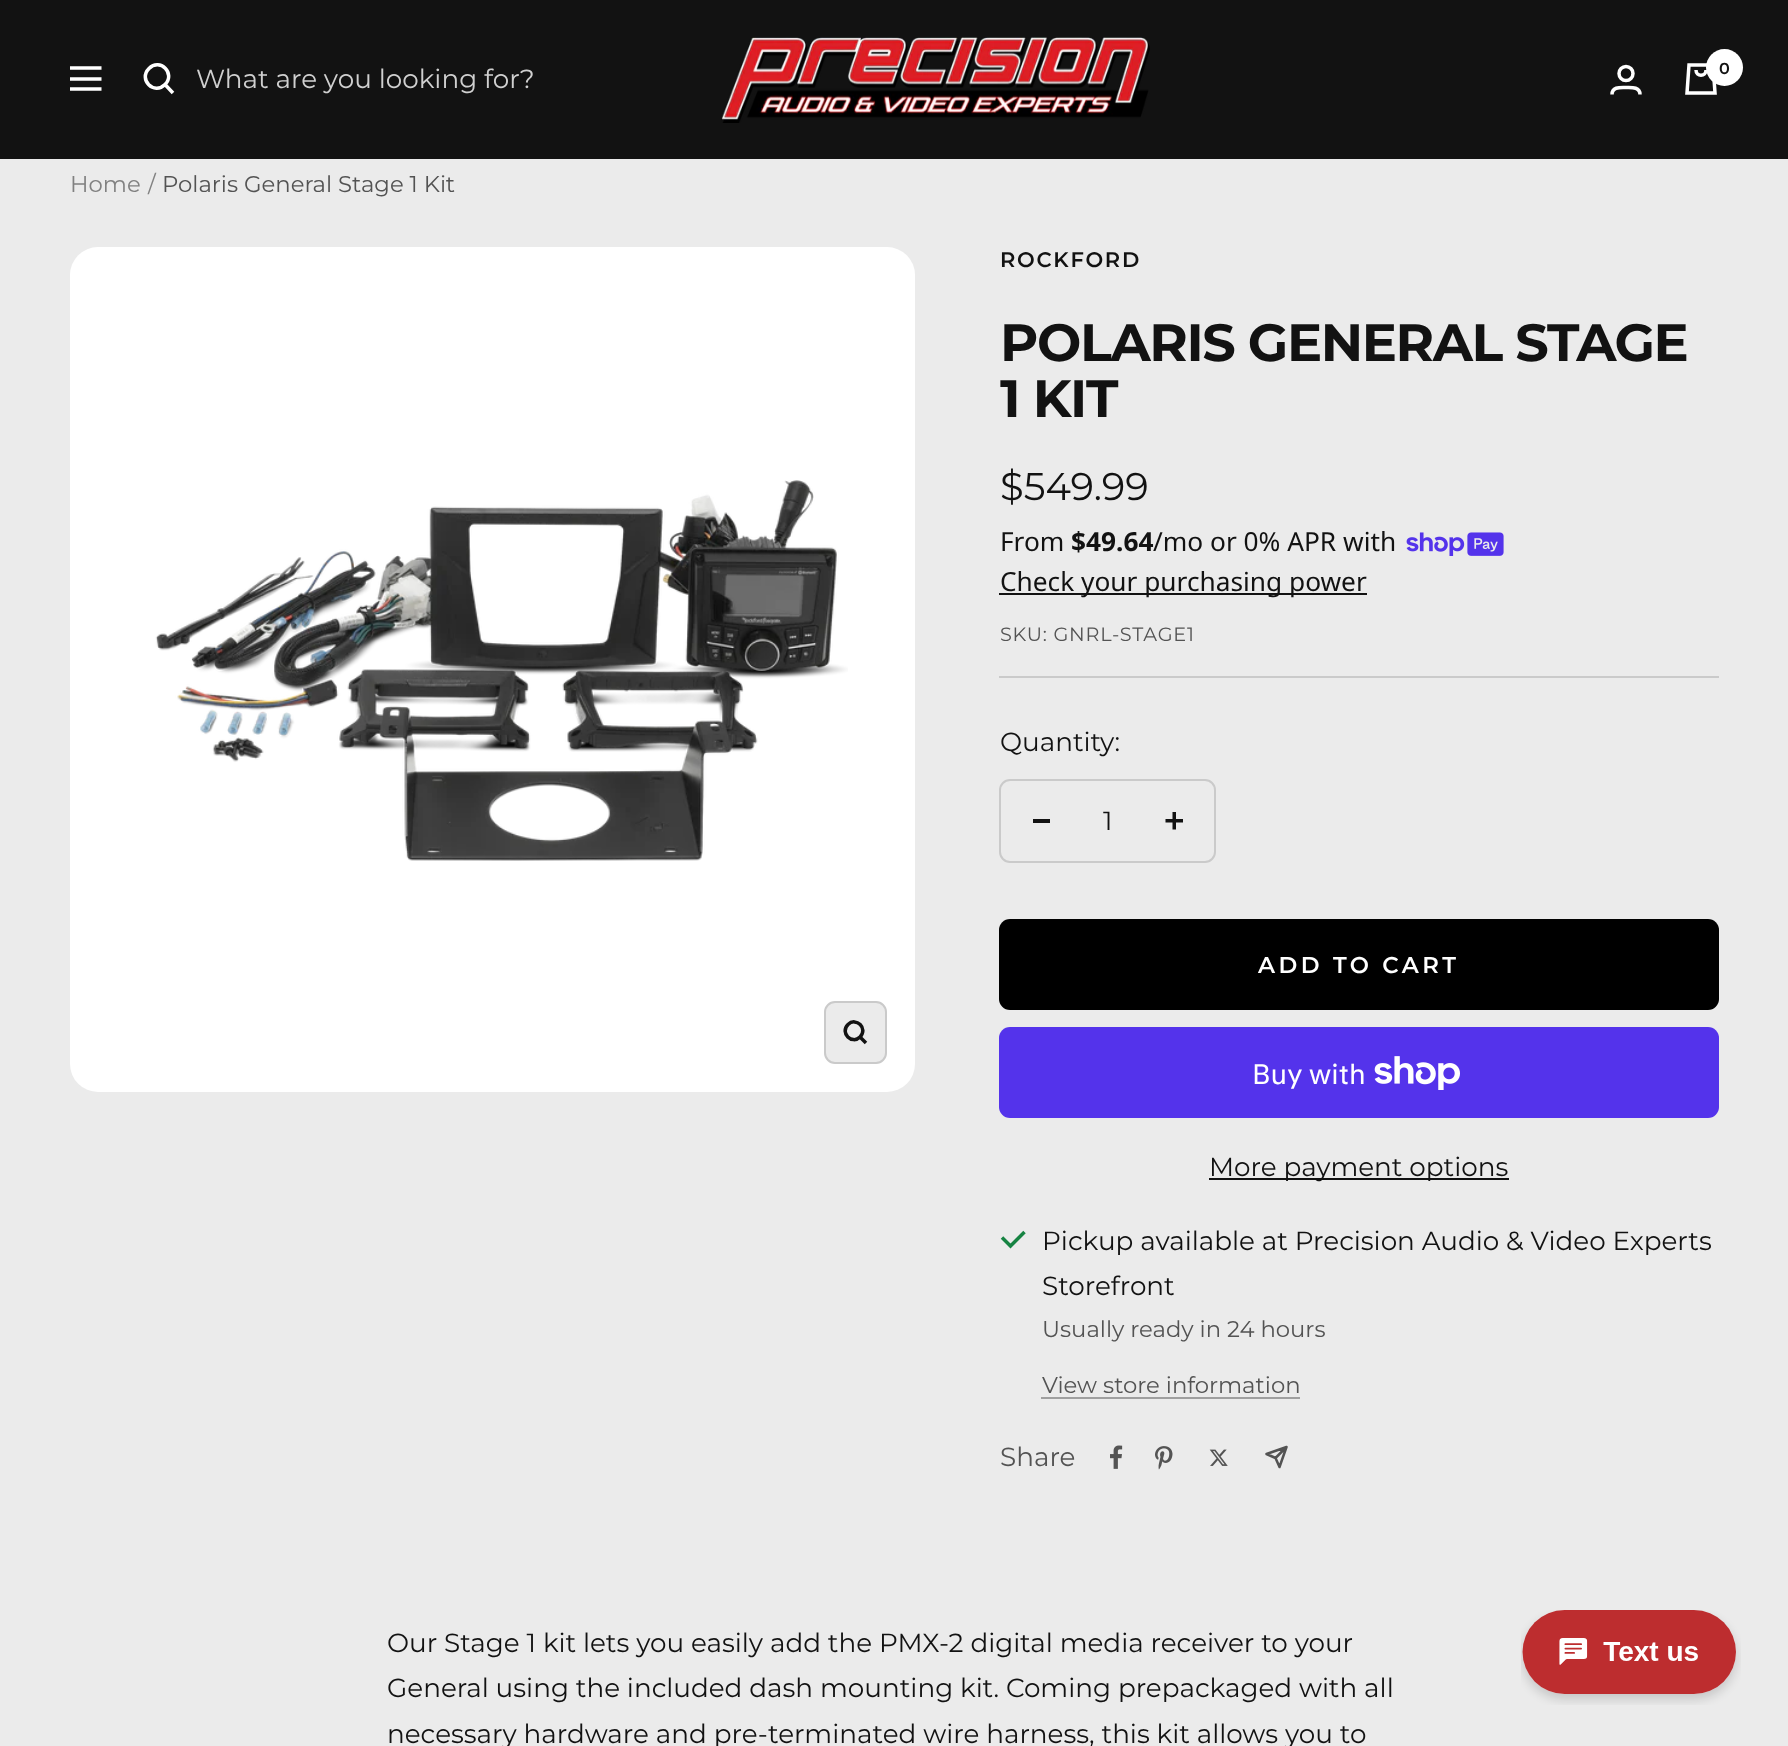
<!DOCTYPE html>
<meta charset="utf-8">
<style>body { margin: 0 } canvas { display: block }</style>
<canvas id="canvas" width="1788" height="1746"></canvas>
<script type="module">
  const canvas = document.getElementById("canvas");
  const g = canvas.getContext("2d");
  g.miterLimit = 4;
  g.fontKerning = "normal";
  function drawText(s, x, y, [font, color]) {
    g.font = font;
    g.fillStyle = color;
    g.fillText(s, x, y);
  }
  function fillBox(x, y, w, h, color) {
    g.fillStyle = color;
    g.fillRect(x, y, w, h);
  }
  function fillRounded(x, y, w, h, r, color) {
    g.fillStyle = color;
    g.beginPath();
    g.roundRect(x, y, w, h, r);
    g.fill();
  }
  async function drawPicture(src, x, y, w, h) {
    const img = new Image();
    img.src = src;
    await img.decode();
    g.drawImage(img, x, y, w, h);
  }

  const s1 = ["26.25px Montserrat", "#D0D0D0"];
  const s2 = ["600 16px Montserrat", "#121212"];
  const s3 = ["22.75px Montserrat", "#818181"];
  const s4 = ["22.75px Montserrat", "#535353"];
  const s5 = ["600 21px Montserrat", "#121212"];
  const s6 = ["bold 52.5px Montserrat", "#121212"];
  const s7 = ["38.5px Montserrat", "#121212"];
  const s8 = ["26.25px Noto Sans", "#121212"];
  const s9 = ["bold 26.25px Noto Sans", "#121212"];
  const s10 = ["19.25px Montserrat", "#535353"];
  const s11 = ["26.25px Montserrat", "#121212"];
  const s12 = ["600 22.75px Montserrat", "#FFFFFF"];
  const s13 = ["28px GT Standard", "#FFFFFF"];
  const s14 = ["26.25px Montserrat", "#535353"];

  fillBox(0, 0, 1788, 1746, "#EBEBEB");
  fillBox(0, 0, 1788, 159, "#121212");
  g.beginPath();
  g.moveTo(70, 68);
  g.lineTo(101.5, 68);
  g.moveTo(70, 89);
  g.lineTo(101.5, 89);
  g.closePath();
  g.moveTo(70, 79);
  g.lineTo(101.5, 79);
  g.closePath();
  g.strokeStyle = "#FFFFFF";
  g.lineWidth = 3.5;
  g.stroke();
  g.beginPath();
  g.moveTo(165, 84.5);
  g.bezierCurveTo(176, 73.5, 160, 57.5, 149, 68.5);
  g.bezierCurveTo(138, 79.5, 154, 95.5, 165, 84.5);
  g.closePath();
  g.moveTo(165, 84.5);
  g.lineTo(173, 93);
  g.stroke();
  drawText("What are you looking for?", 196, 88, s1);
  await drawPicture("pic1.png", 721, 37, 429, 86);
  g.beginPath();
  g.arc(1626, 73.5, 7, 0, Math.PI * 2);
  g.stroke();
  g.beginPath();
  g.moveTo(1612, 94.5);
  g.bezierCurveTo(1612, 86.5, 1620.5, 87.5, 1626, 87.5);
  g.bezierCurveTo(1631, 87.5, 1640, 86.5, 1640, 94.5);
  g.stroke();
  g.beginPath();
  g.moveTo(1689, 65);
  g.lineTo(1713, 65);
  g.lineTo(1715, 93);
  g.lineTo(1687, 93);
  g.closePath();
  g.moveTo(1696, 70);
  g.bezierCurveTo(1696, 77, 1706, 77, 1706, 70);
  g.stroke();
  g.fillStyle = "#FFFFFF";
  g.beginPath();
  g.arc(1724.5, 67.5, 18.5, 0, Math.PI * 2);
  g.fill();
  drawText("0", 1719, 74, s2);
  drawText("Home", 70, 192, s3);
  drawText("/", 148, 192, s3);
  drawText("Polaris General Stage 1 Kit", 162, 192, s4);
  fillRounded(70, 247, 845, 845, 28, "#FFFFFF");
  await drawPicture("pic2.png", 155, 480, 693, 381);
  g.fillStyle = "#EBEBEB";
  g.beginPath();
  g.roundRect(825, 1002, 61, 61, 10);
  g.fill();
  g.strokeStyle = "#CACACA";
  g.lineWidth = 2;
  g.stroke();
  g.beginPath();
  g.moveTo(860, 1037);
  g.bezierCurveTo(868.5, 1028.5, 856, 1016.5, 848, 1024.5);
  g.bezierCurveTo(839.5, 1033, 852, 1045, 860, 1037);
  g.closePath();
  g.moveTo(860, 1037);
  g.lineTo(866, 1043);
  g.strokeStyle = "#121212";
  g.lineWidth = 3.5;
  g.stroke();
  fillBox(999, 676, 720, 2, "#CACACA");
  g.letterSpacing = "1.75px";
  drawText("ROCKFORD", 1000, 267, s5);
  g.letterSpacing = "-1.4px";
  drawText("POLARIS GENERAL STAGE", 1000, 361, s6);
  drawText("1 KIT", 1000, 417, s6);
  g.letterSpacing = "0px";
  drawText("$549.99", 1000, 500, s7);
  drawText("From", 1000, 551, s8);
  drawText("$49.64", 1071, 551, s9);
  drawText("/mo or 0% APR with", 1153, 551, s8);
  await drawPicture("pic3.png", 1406, 532, 98, 24);
  fillBox(999, 593, 368, 2, "#121212");
  drawText("Check your purchasing power", 1000, 591, s8);
  g.letterSpacing = "0.75px";
  drawText("SKU: GNRL-STAGE1", 1000, 641, s10);
  g.letterSpacing = "0px";
  drawText("Quantity:", 1000, 751, s11);
  g.beginPath();
  g.roundRect(1000, 780, 215, 82, 10);
  g.strokeStyle = "#CACACA";
  g.lineWidth = 2;
  g.stroke();
  fillBox(1033, 819, 17, 4, "#121212");
  drawText("1", 1103, 830, s11);
  await drawPicture("pic4.png", 1165, 812, 18, 18);
  fillRounded(999, 919, 720, 91, 11, "#000000");
  g.letterSpacing = "3.5px";
  drawText("ADD TO CART", 1258, 973, s12);
  fillRounded(999, 1027, 720, 91, 11, "#5433EB");
  g.letterSpacing = "0px";
  drawText("Buy with", 1252, 1084, s13);
  await drawPicture("pic5.png", 1374, 1056, 86, 34);
  fillBox(1209, 1178, 300, 2, "#121212");
  drawText("More payment options", 1209, 1176, s11);
  g.beginPath();
  g.moveTo(1002, 1237.5);
  g.lineTo(1010.5, 1246);
  g.lineTo(1024.5, 1232);
  g.strokeStyle = "#168342";
  g.lineWidth = 3.5;
  g.stroke();
  drawText("Pickup available at Precision Audio & Video Experts", 1042, 1250, s11);
  drawText("Storefront", 1042, 1295, s11);
  drawText("Usually ready in 24 hours", 1042, 1337, s4);
  drawText("View store information", 1042, 1393, s4);
  fillBox(1041, 1397, 259, 2, "#9F9F9F");
  drawText("Share", 1000, 1466, s14);
  await drawPicture("pic6.png", 1110, 1445, 13, 24);
  await drawPicture("pic7.png", 1155, 1446, 18, 24);
  await drawPicture("pic8.png", 1209, 1449, 19, 17);
  g.beginPath();
  g.moveTo(1286.5, 1447);
  g.lineTo(1279.5, 1467);
  g.lineTo(1275.5, 1458);
  g.moveTo(1286.5, 1447);
  g.lineTo(1266.5, 1454);
  g.lineTo(1275.5, 1458);
  g.moveTo(1286.5, 1447);
  g.lineTo(1275.5, 1458);
  g.strokeStyle = "#535353";
  g.lineWidth = 2.5;
  g.lineCap = "round";
  g.lineJoin = "round";
  g.stroke();
  drawText("Our Stage 1 kit lets you easily add the PMX-2 digital media receiver to your", 387, 1652, s11);
  drawText("General using the included dash mounting kit. Coming prepackaged with all", 387, 1697, s11);
  drawText("necessary hardware and pre-terminated wire harness, this kit allows you to", 387, 1743, s11);
  await drawPicture("pic9.png", 1521, 1610, 220, 95);
</script>
